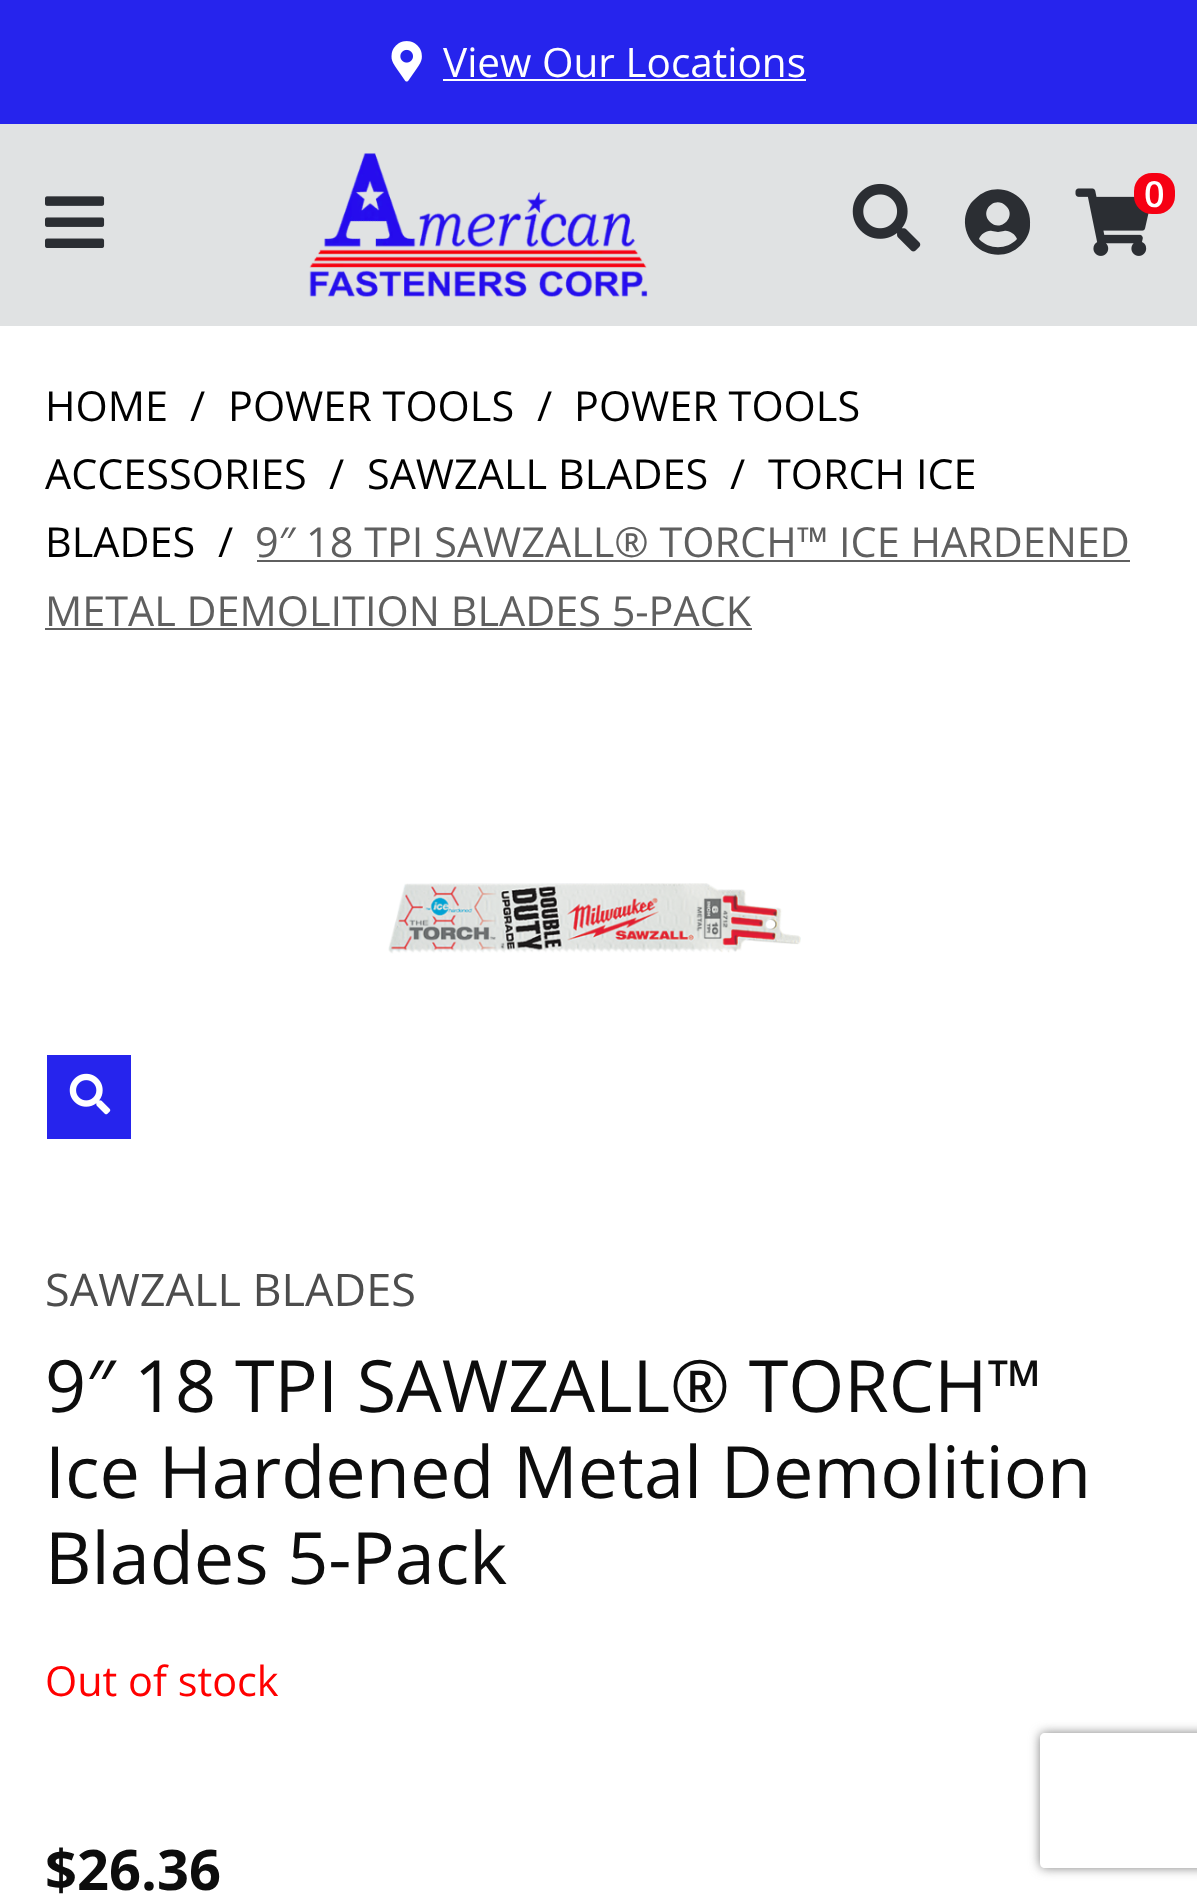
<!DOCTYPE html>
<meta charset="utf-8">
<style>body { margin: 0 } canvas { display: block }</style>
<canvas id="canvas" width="1197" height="1897"></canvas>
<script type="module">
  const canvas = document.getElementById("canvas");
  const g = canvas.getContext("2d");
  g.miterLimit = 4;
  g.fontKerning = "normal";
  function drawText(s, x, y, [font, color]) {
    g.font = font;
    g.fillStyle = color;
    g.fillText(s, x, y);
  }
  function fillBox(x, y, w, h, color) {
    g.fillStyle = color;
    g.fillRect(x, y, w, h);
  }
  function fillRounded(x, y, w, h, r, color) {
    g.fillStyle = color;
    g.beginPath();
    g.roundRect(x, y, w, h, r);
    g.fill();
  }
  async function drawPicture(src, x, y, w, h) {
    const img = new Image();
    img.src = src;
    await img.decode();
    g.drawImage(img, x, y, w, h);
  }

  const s1 = ["40.5px Open Sans", "#FFFFFF"];
  const s2 = ["600 36px Open Sans", "#FFFFFF"];
  const s3 = ["41.4px Open Sans", "#000000"];
  const s4 = ["41.4px Open Sans", "#5F5F5F"];
  const s5 = ["45px Open Sans", "#4D4D4D"];
  const s6 = ["72px Open Sans", "#0D0D0D"];
  const s7 = ["41.4px Open Sans", "#FF0000"];
  const s8 = ["bold 56px Open Sans", "#0D0D0D"];

  fillBox(0, 0, 1197, 1897, "#FFFFFF");
  fillBox(0, 0, 1197, 124, "#2624ED");
  await drawPicture("pic1.png", 391, 41, 31, 41);
  drawText("View Our Locations", 443, 77, s1);
  fillBox(443, 79, 363, 2, "#FFFFFF");
  fillBox(0, 124, 1197, 202, "#E0E2E3");
  await drawPicture("pic2.png", 45, 196, 60, 52);
  await drawPicture("pic3.png", 309, 153, 339, 144);
  await drawPicture("pic4.png", 852, 183, 69, 69);
  g.fillStyle = "#2B2E33";
  g.beginPath();
  g.moveTo(975, 199);
  g.bezierCurveTo(997, 177, 1033, 195, 1030, 226);
  g.bezierCurveTo(1030, 233, 1026, 240, 1021, 245);
  g.bezierCurveTo(999, 267, 963, 249, 965, 219);
  g.bezierCurveTo(966, 211, 969, 204, 975, 199);
  g.closePath();
  g.moveTo(1006, 206);
  g.bezierCurveTo(995, 195, 979, 211, 990, 222);
  g.bezierCurveTo(1001, 233, 1017, 216, 1006, 206);
  g.closePath();
  g.moveTo(979, 239);
  g.bezierCurveTo(989, 250, 1007, 250, 1017, 239);
  g.bezierCurveTo(1015, 234, 1009, 230, 1004, 231);
  g.lineTo(998, 232);
  g.lineTo(992, 231);
  g.bezierCurveTo(987, 230, 981, 234, 979, 239);
  g.closePath();
  g.fill();
  await drawPicture("pic5.png", 1075, 188, 74, 68);
  fillRounded(1134, 173, 41, 41, 18, "#F60013");
  drawText("0", 1144, 207, s2);
  drawText("HOME", 45, 421, s3);
  drawText("/", 190, 421, s3);
  drawText("POWER TOOLS", 228, 421, s3);
  drawText("/", 537, 421, s3);
  drawText("POWER TOOLS", 574, 421, s3);
  drawText("ACCESSORIES", 45, 489, s3);
  drawText("/", 329, 489, s3);
  drawText("SAWZALL BLADES", 367, 489, s3);
  drawText("/", 730, 489, s3);
  drawText("TORCH ICE", 768, 489, s3);
  drawText("BLADES", 45, 557, s3);
  drawText("/", 218, 557, s3);
  drawText("9″ 18 TPI SAWZALL® TORCH™ ICE HARDENED", 255, 557, s4);
  fillBox(257, 560, 873, 2, "#5F5F5F");
  drawText("METAL DEMOLITION BLADES 5-PACK", 45, 626, s4);
  fillBox(45, 628, 707, 2, "#5F5F5F");
  await drawPicture("pic6.png", 388, 883, 413, 71);
  fillBox(47, 1055, 84, 84, "#2624ED");
  await drawPicture("pic7.png", 69, 1073, 42, 42);
  drawText("SAWZALL BLADES", 45, 1306, s5);
  drawText("9″ 18 TPI SAWZALL® TORCH™", 45, 1412, s6);
  drawText("Ice Hardened Metal Demolition", 45, 1498, s6);
  drawText("Blades 5-Pack", 45, 1584, s6);
  drawText("Out of stock", 45, 1696, s7);
  drawText("$26.36", 45, 1890, s8);
  g.save();
  g.beginPath();
  g.moveTo(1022, 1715);
  g.lineTo(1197, 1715);
  g.lineTo(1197, 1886);
  g.lineTo(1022, 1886);
  g.closePath();
  g.moveTo(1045, 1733);
  g.lineTo(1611, 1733);
  g.bezierCurveTo(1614, 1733, 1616, 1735, 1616, 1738);
  g.lineTo(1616, 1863);
  g.bezierCurveTo(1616, 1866, 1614, 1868, 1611, 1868);
  g.lineTo(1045, 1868);
  g.bezierCurveTo(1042, 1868, 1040, 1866, 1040, 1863);
  g.lineTo(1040, 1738);
  g.bezierCurveTo(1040, 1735, 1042, 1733, 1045, 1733);
  g.closePath();
  g.clip("evenodd");
  g.fillStyle = "#808080";
  g.filter = "blur(5.5px)";
  g.beginPath();
  g.roundRect(1040, 1733, 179, 135, 5);
  g.fill();
  g.filter = "none";
  g.restore();
</script>
